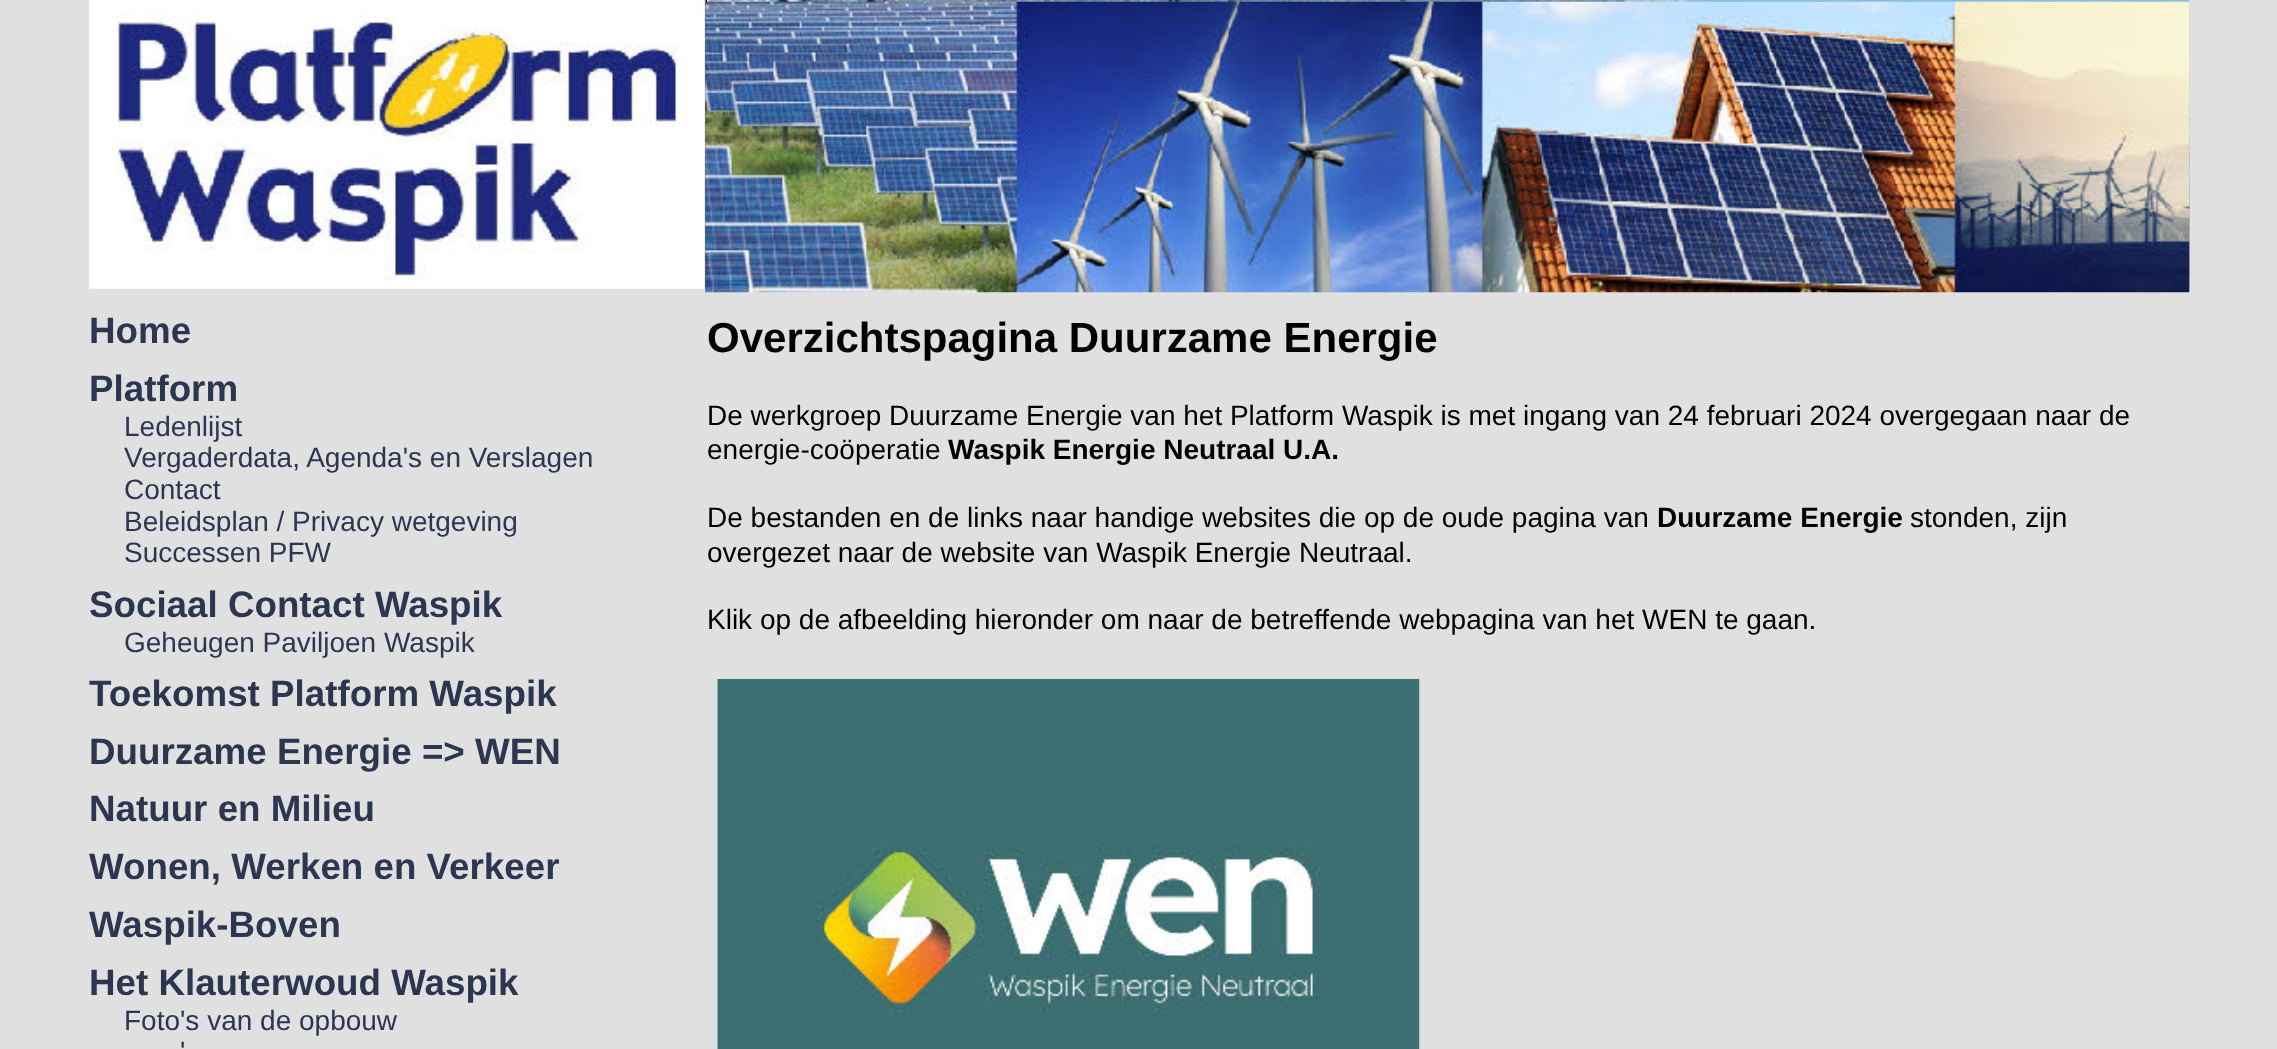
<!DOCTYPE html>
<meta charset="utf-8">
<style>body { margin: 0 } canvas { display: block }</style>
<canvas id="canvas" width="2277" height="1049"></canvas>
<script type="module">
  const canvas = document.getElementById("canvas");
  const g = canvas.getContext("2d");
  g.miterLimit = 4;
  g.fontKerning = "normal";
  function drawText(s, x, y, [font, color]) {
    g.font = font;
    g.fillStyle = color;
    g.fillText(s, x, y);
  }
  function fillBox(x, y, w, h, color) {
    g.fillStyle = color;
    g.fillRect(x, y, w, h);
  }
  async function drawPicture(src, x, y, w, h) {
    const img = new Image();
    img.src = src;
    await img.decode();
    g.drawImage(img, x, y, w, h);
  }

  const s1 = ["bold 36.75px Liberation Sans", "#2C3651"];
  const s2 = ["28px Liberation Sans", "#2C3651"];
  const s3 = ["bold 42px Liberation Sans", "#000000"];
  const s4 = ["28px Liberation Sans", "#000000"];
  const s5 = ["bold 28px Liberation Sans", "#000000"];

  fillBox(0, 0, 2277, 1049, "#E0E0E0");
  await drawPicture("pic1.png", 89, 0, 618, 289);
  await drawPicture("pic2.png", 708, 0, 1482, 289);
  await drawPicture("pic3.png", 705, 1, 1485, 292);
  drawText("Home", 89, 343, s1);
  drawText("Platform", 89, 401, s1);
  drawText("Ledenlijst", 124, 436, s2);
  drawText("Vergaderdata, Agenda's en Verslagen", 124, 467, s2);
  drawText("Contact", 124, 499, s2);
  drawText("Beleidsplan / Privacy wetgeving", 124, 531, s2);
  drawText("Successen PFW", 124, 562, s2);
  drawText("Sociaal Contact Waspik", 89, 617, s1);
  drawText("Geheugen Paviljoen Waspik", 124, 652, s2);
  drawText("Toekomst Platform Waspik", 89, 706, s1);
  drawText("Duurzame Energie => WEN", 89, 764, s1);
  drawText("Natuur en Milieu", 89, 821, s1);
  drawText("Wonen, Werken en Verkeer", 89, 879, s1);
  drawText("Waspik-Boven", 89, 937, s1);
  drawText("Het Klauterwoud Waspik", 89, 995, s1);
  drawText("Foto's van de opbouw", 124, 1030, s2);
  drawText("'", 180, 1061, s2);
  drawText("Overzichtspagina Duurzame Energie", 707, 352, s3);
  drawText("De werkgroep Duurzame Energie van het Platform Waspik is met ingang van 24 februari 2024 overgegaan naar de", 707, 425, s4);
  drawText("energie-coöperatie", 707, 459, s4);
  drawText("Waspik Energie Neutraal U.A.", 948, 459, s5);
  drawText("De bestanden en de links naar handige websites die op de oude pagina van", 707, 527, s4);
  drawText("Duurzame Energie", 1657, 527, s5);
  drawText("stonden, zijn", 1910, 527, s4);
  drawText("overgezet naar de website van Waspik Energie Neutraal.", 707, 562, s4);
  drawText("Klik op de afbeelding hieronder om naar de betreffende webpagina van het WEN te gaan.", 707, 629, s4);
  await drawPicture("pic4.png", 717, 679, 703, 370);
</script>
